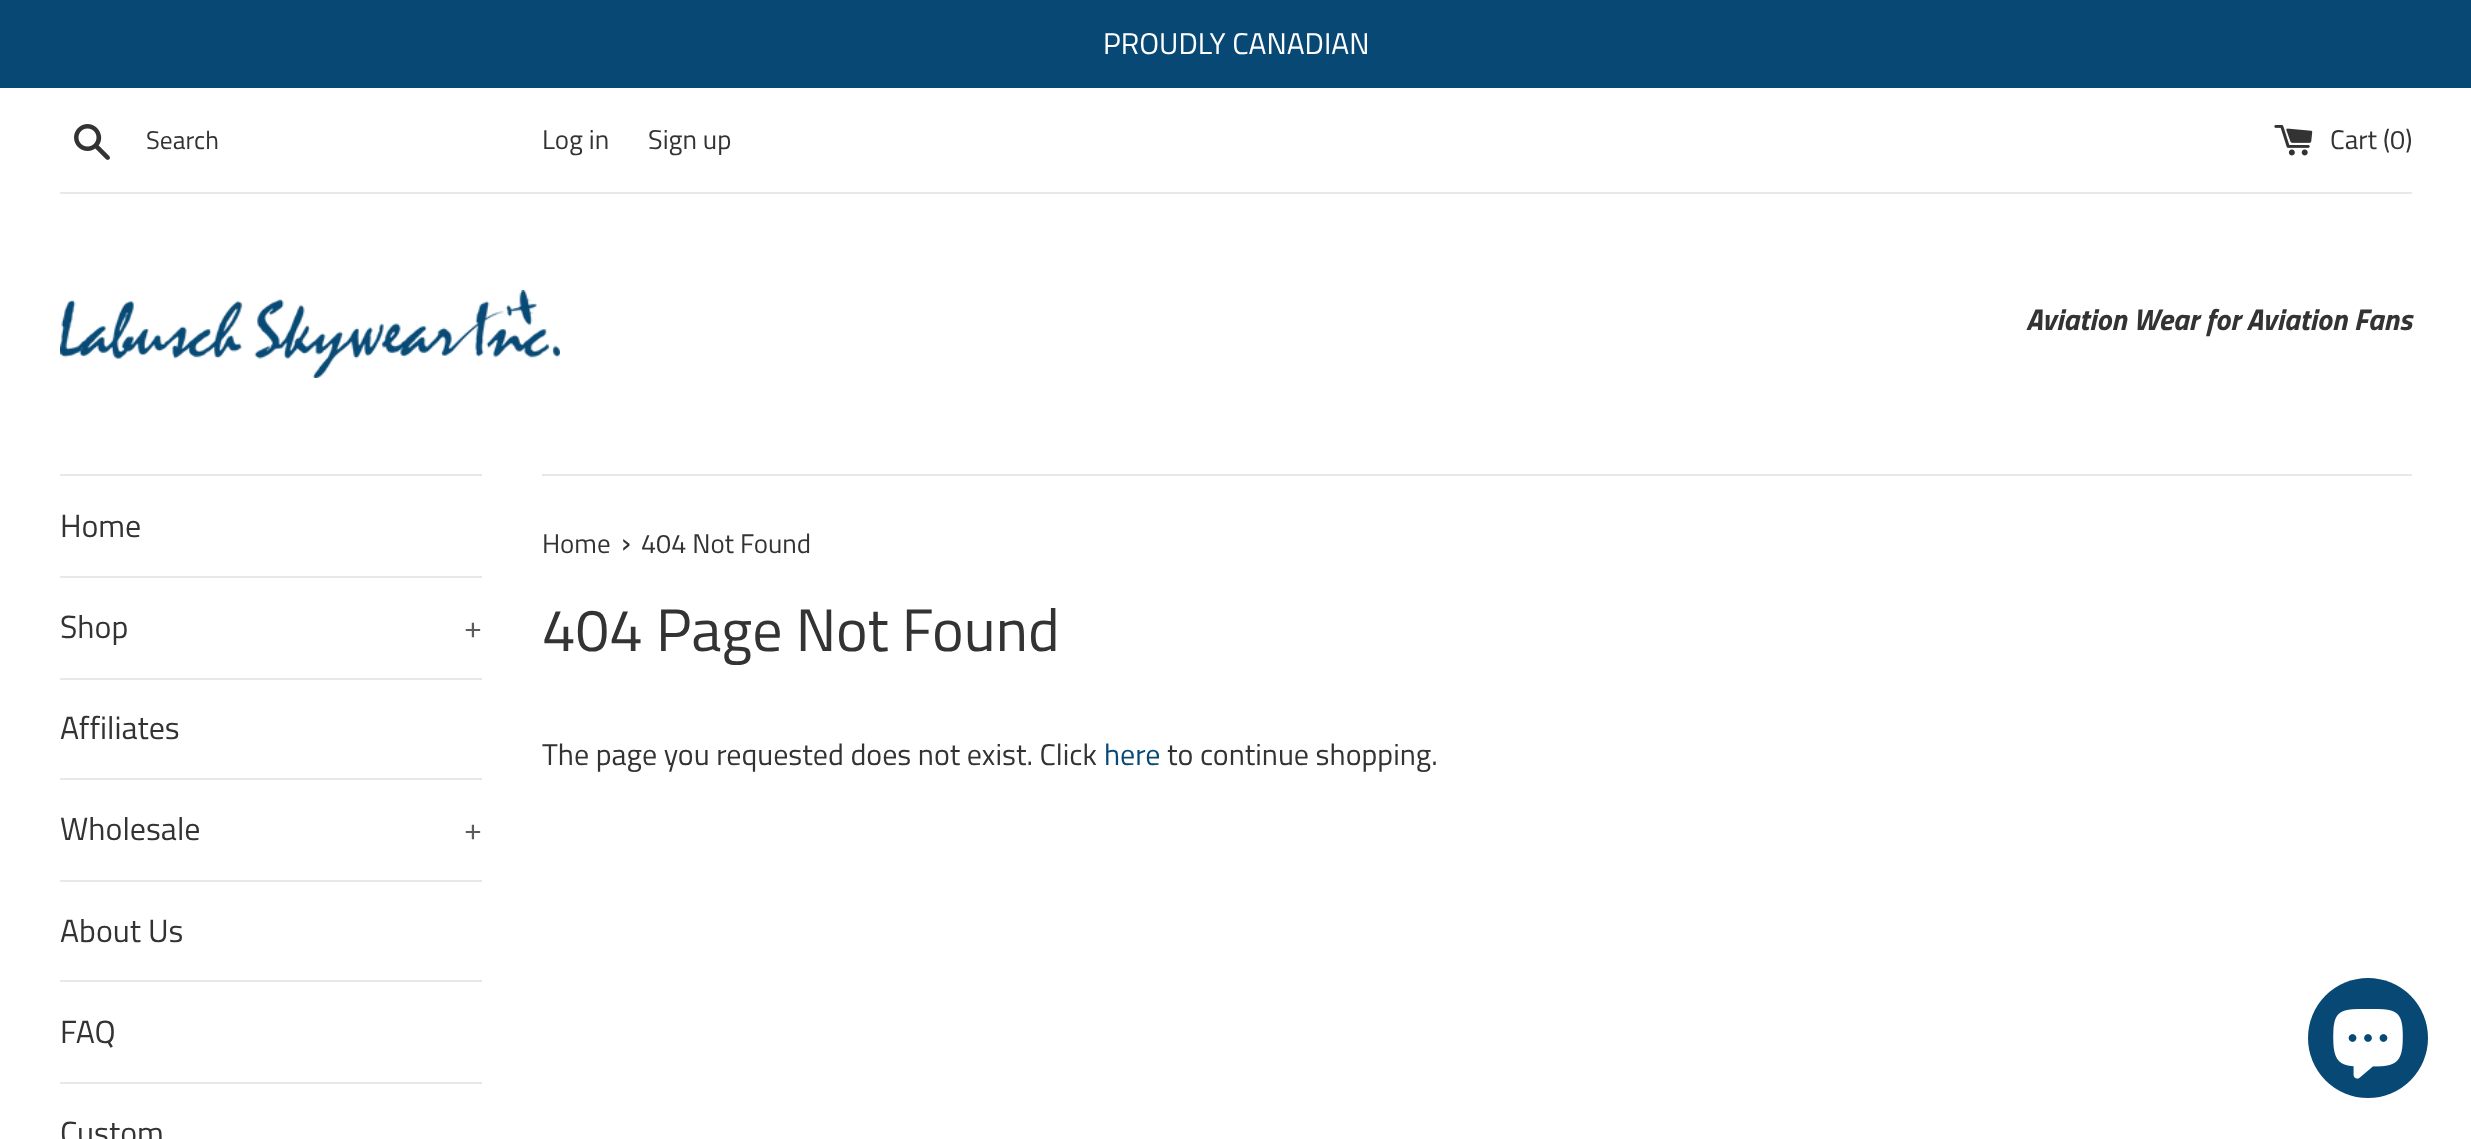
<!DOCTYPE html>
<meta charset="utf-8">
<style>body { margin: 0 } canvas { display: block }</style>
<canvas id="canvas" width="2471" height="1139"></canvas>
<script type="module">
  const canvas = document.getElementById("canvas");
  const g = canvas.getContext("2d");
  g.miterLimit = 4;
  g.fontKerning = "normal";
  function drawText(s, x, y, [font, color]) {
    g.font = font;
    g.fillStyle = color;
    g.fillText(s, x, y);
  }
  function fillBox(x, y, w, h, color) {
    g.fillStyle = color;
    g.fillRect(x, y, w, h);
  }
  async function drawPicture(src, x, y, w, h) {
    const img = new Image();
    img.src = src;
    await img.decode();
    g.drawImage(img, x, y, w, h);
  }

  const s1 = ["30px Titillium Web", "#FFFFFF"];
  const s2 = ["25.5px Titillium Web", "#333333"];
  const s3 = ["27px Titillium Web", "#333333"];
  const s4 = ["italic bold 30px Titillium Web", "#333333"];
  const s5 = ["32px Titillium Web", "#333333"];
  const s6 = ["32px Titillium Web", "#5C5C5C"];
  const s7 = ["33px Titillium Web", "#333333"];
  const s8 = ["60px Titillium Web", "#333333"];
  const s9 = ["30px Titillium Web", "#333333"];
  const s10 = ["30px Titillium Web", "#084874"];

  fillBox(0, 0, 2471, 1139, "#FFFFFF");
  fillBox(0, 0, 2471, 88, "#084874");
  drawText("PROUDLY CANADIAN", 1103, 54, s1);
  await drawPicture("pic1.png", 74, 124, 36, 36);
  drawText("Search", 146, 149, s2);
  drawText("Log in", 542, 149, s3);
  drawText("Sign up", 648, 149, s3);
  await drawPicture("pic2.png", 2274, 125, 39, 31);
  drawText("Cart (0)", 2330, 149, s3);
  fillBox(60, 192, 2352, 2, "#E8E8E8");
  await drawPicture("pic3.png", 60, 290, 500, 88);
  drawText("Aviation Wear for Aviation Fans", 2026, 330, s4);
  fillBox(60, 474, 422, 2, "#E8E8E8");
  fillBox(60, 576, 422, 2, "#E8E8E8");
  drawText("Home", 60, 537, s5);
  fillBox(60, 678, 422, 2, "#E8E8E8");
  drawText("Shop", 60, 638, s5);
  drawText("+", 464, 638, s6);
  fillBox(60, 778, 422, 2, "#E8E8E8");
  drawText("Affiliates", 60, 739, s5);
  fillBox(60, 880, 422, 2, "#E8E8E8");
  drawText("Wholesale", 60, 840, s5);
  drawText("+", 464, 840, s6);
  fillBox(60, 980, 422, 2, "#E8E8E8");
  drawText("About Us", 60, 942, s5);
  fillBox(60, 1082, 422, 2, "#E8E8E8");
  drawText("FAQ", 60, 1043, s5);
  drawText("Custom", 60, 1144, s5);
  fillBox(542, 474, 1870, 2, "#E8E8E8");
  drawText("Home", 542, 553, s3);
  drawText("›", 621, 553, s7);
  drawText("404 Not Found", 641, 553, s3);
  drawText("404 Page Not Found", 542, 651, s8);
  drawText("The page you requested does not exist. Click", 542, 765, s9);
  drawText("here", 1104, 765, s10);
  drawText("to continue shopping.", 1167, 765, s9);
  g.fillStyle = "#084874";
  g.beginPath();
  g.arc(2368, 1038, 60, 0, Math.PI * 2);
  g.fill();
  await drawPicture("pic4.png", 2333, 1009, 70, 70);
</script>
